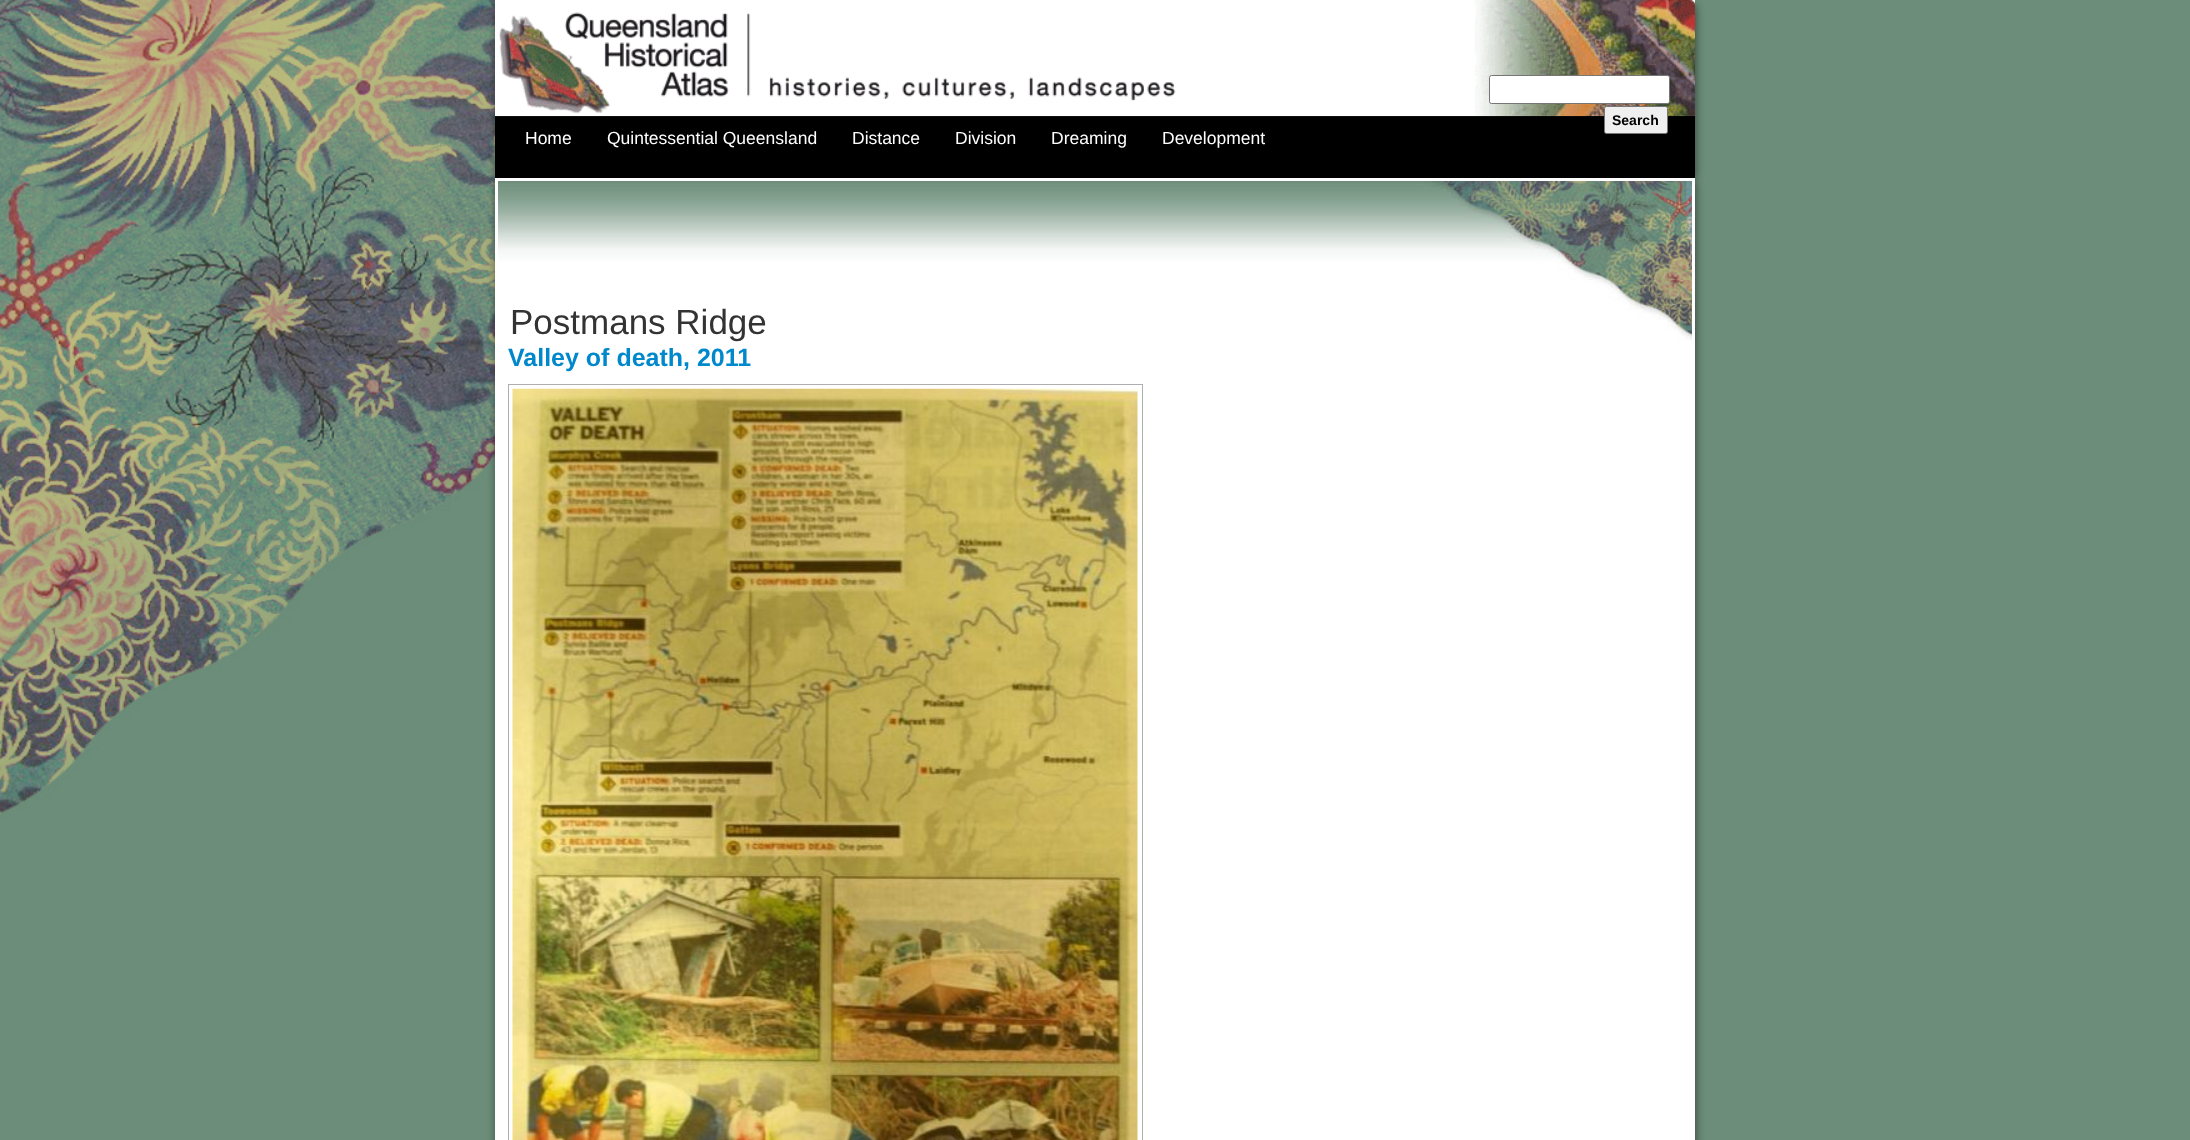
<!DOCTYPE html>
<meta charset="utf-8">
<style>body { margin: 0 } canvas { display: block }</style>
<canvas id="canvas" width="2190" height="1140"></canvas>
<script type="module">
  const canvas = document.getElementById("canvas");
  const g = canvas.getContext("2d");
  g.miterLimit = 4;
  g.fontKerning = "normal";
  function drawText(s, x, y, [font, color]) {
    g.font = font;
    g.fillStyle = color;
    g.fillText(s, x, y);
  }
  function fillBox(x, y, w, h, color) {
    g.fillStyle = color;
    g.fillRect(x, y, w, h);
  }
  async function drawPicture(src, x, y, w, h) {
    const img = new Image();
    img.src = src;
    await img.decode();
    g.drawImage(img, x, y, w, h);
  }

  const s1 = ["bold 14px Liberation Sans", "#000000"];
  const s2 = ["17.5px Liberation Sans", "#FFFFFF"];
  const s3 = ["35px Liberation Sans", "#333333"];
  const s4 = ["bold 25px Liberation Sans", "#0088CC"];

  fillBox(0, 0, 2190, 1140, "#6C8D7A");
  await drawPicture("pic1.png", 0, 0, 495, 820);
  g.fillStyle = "rgba(0, 0, 0, 0.5)";
  g.filter = "blur(4px)";
  g.beginPath();
  g.roundRect(496, 3, 1200, 177, 6);
  g.fill();
  g.filter = "none";
  g.filter = "blur(4px)";
  g.beginPath();
  g.roundRect(496, 180, 1200, 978, 6);
  g.fill();
  g.filter = "none";
  fillBox(495, 116, 1200, 62, "#000000");
  await drawPicture("pic2.png", 495, 0, 1200, 117);
  g.fillStyle = "#FFFFFF";
  g.beginPath();
  g.roundRect(1489.5, 75.5, 180, 28, 2);
  g.fill();
  g.strokeStyle = "#767676";
  g.stroke();
  g.fillStyle = "#EFEFEF";
  g.beginPath();
  g.roundRect(1604.5, 106.5, 63, 27, 2);
  g.fill();
  g.stroke();
  drawText("Search", 1612, 125, s1);
  drawText("Home", 525, 144, s2);
  drawText("Quintessential Queensland", 607, 144, s2);
  drawText("Distance", 852, 144, s2);
  drawText("Division", 955, 144, s2);
  drawText("Dreaming", 1051, 144, s2);
  drawText("Development", 1162, 144, s2);
  fillBox(495, 345, 1200, 795, "#FFFFFF");
  await drawPicture("pic3.png", 498, 181, 1194, 161);
  g.strokeStyle = "#FFFFFF";
  g.lineWidth = 3;
  g.strokeRect(496.5, 179.5, 1197, 164);
  drawText("Postmans Ridge", 510, 334, s3);
  drawText("Valley of death, 2011", 508, 366, s4);
  g.strokeStyle = "#AEAEAF";
  g.lineWidth = 1;
  g.strokeRect(508.5, 384.5, 634, 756);
  await drawPicture("pic4.png", 512, 388, 626, 752);
</script>
